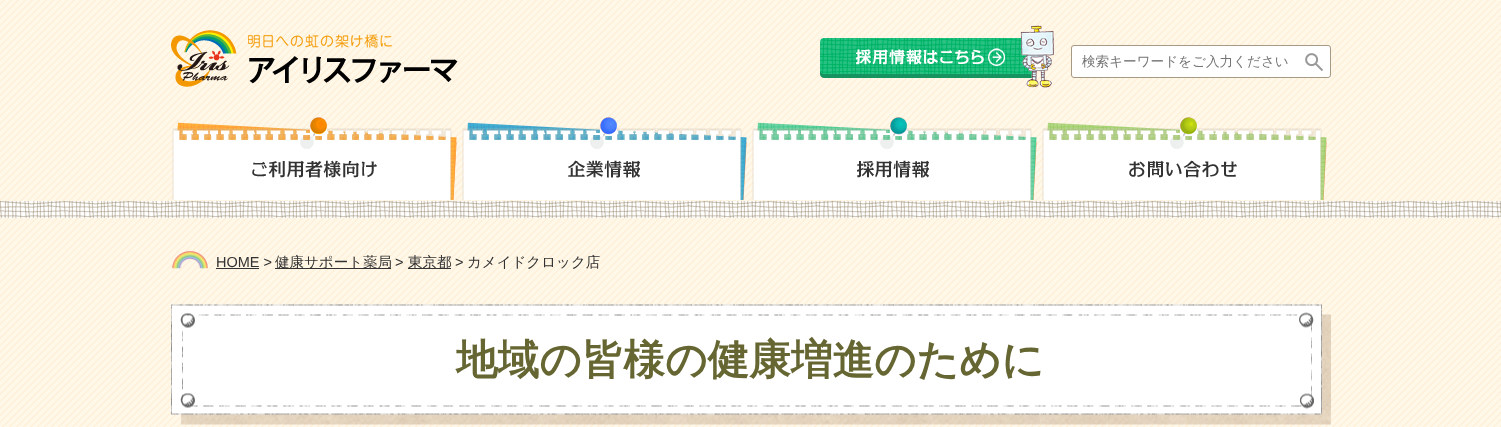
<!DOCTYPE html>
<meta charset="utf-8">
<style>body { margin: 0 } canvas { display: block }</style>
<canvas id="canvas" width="1501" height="427"></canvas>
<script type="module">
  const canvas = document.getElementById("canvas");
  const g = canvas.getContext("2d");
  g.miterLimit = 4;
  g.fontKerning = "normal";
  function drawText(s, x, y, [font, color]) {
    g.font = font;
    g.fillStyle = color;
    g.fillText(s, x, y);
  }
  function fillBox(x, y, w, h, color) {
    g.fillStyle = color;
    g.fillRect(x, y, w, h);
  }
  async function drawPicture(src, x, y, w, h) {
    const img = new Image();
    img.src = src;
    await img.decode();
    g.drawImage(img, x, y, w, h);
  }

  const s1 = ["500 13.6px WenQuanYi Zen Hei", "#757575"];
  const s2 = ["14.5px Liberation Sans", "#323232"];
  const s3 = ["500 14.5px WenQuanYi Zen Hei", "#323232"];
  const s4 = ["bold 41.6px WenQuanYi Zen Hei", "#666633"];

  fillBox(0, 0, 1501, 427, "#FFFFFF");
  await drawPicture("pic1.png", 0, 0, 1501, 201);
  await drawPicture("pic2.png", 171, 30, 287, 57);
  await drawPicture("pic3.png", 820, 25, 234, 63);
  g.beginPath();
  g.roundRect(1071.5, 45.5, 259, 32, 2.5);
  g.fill();
  g.strokeStyle = "#A69A85";
  g.stroke();
  drawText("検索キーワードをご入力ください", 1082, 66, s1);
  await drawPicture("pic4.png", 1305, 53, 18, 18);
  await drawPicture("pic5.png", 172, 117, 285, 83);
  await drawPicture("pic6.png", 462, 117, 285, 83);
  await drawPicture("pic7.png", 752, 117, 285, 83);
  await drawPicture("pic8.png", 1042, 117, 285, 83);
  await drawPicture("pic9.png", 0, 218, 1501, 209);
  await drawPicture("pic10.png", 0, 201, 1501, 17);
  await drawPicture("pic11.png", 172, 251, 36, 18);
  drawText("HOME >", 216, 267, s2);
  fillBox(216, 268, 43, 1, "#323232");
  fillBox(275, 268, 116, 1, "#323232");
  drawText("健康サポート薬局", 275, 267, s3);
  drawText(">", 395, 267, s2);
  fillBox(408, 268, 43, 1, "#323232");
  drawText("東京都", 408, 267, s3);
  drawText(">", 455, 267, s2);
  drawText("カメイドクロック店", 467, 267, s3);
  await drawPicture("pic12.png", 171, 304, 1160, 121);
  drawText("地域の皆様の健康増進のために", 456, 374, s4);
</script>
